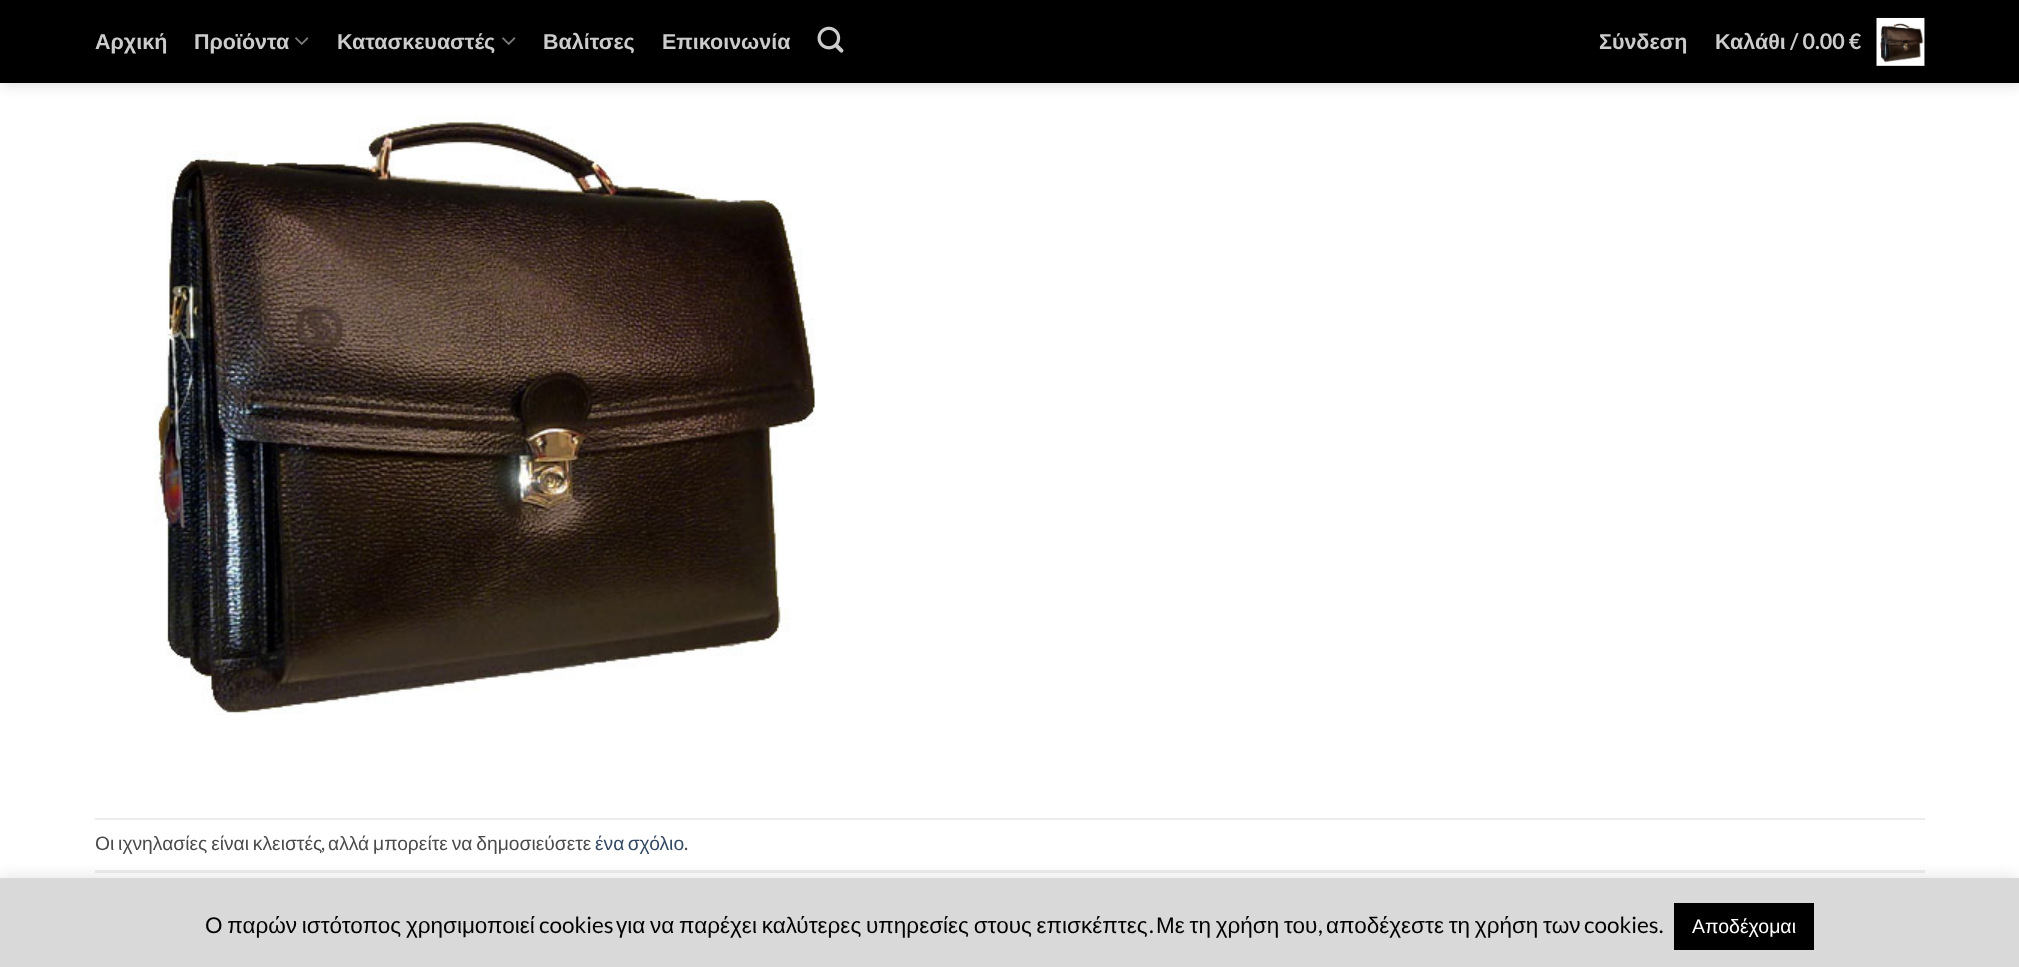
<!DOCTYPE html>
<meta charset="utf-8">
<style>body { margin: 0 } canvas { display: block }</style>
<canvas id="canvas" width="2019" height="967"></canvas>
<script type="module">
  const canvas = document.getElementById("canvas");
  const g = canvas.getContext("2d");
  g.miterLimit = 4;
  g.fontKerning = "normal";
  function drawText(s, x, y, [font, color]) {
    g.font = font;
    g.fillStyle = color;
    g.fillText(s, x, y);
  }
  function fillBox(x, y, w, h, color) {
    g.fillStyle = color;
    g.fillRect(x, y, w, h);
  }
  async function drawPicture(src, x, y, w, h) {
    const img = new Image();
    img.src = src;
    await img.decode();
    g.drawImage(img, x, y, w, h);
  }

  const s1 = ["bold 21.5px Liberation Sans", "#CCCCCC"];
  const s2 = ["bold 21.5px Lato", "#CCCCCC"];
  const s3 = ["19.25px Liberation Sans", "#4A4A4A"];
  const s4 = ["19.25px Lato", "#4A4A4A"];
  const s5 = ["19.25px Liberation Sans", "#334862"];
  const s6 = ["22.5px Liberation Sans", "#000000"];
  const s7 = ["22.5px Lato", "#000000"];
  const s8 = ["19.5px Liberation Sans", "#FFFFFF"];

  fillBox(0, 0, 2019, 967, "#FFFFFF");
  g.fillStyle = "rgba(0, 0, 0, 0.15)";
  g.filter = "blur(7.5px)";
  g.beginPath();
  g.rect(2, 2, 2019, 82);
  g.fill();
  g.filter = "none";
  fillBox(0, 0, 2019, 83, "#000000");
  drawText("Αρχική", 95, 49, s1);
  drawText("Προϊόντα", 194, 49, s1);
  await drawPicture("pic1.png", 295, 37, 14, 8);
  drawText("Κατασκευαστές", 337, 49, s1);
  await drawPicture("pic1.png", 502, 37, 14, 8);
  drawText("Βαλίτσες", 543, 49, s1);
  drawText("Επικοινωνία", 662, 49, s1);
  await drawPicture("pic2.png", 817, 26, 27, 27);
  drawText("Σύνδεση", 1599, 49, s1);
  drawText("Καλάθι", 1715, 49, s1);
  drawText("/ 0.00 €", 1790, 49, s2);
  await drawPicture("pic3.png", 1876, 17, 49, 49);
  await drawPicture("pic4.png", 154, 115, 661, 600);
  fillBox(95, 818, 1830, 2, "#ECECEC");
  fillBox(95, 870, 1830, 3, "#ECECEC");
  g.wordSpacing = "-1.5px";
  drawText("Οι ιχνηλασίες είναι κλειστές", 95, 850, s3);
  g.wordSpacing = "0px";
  drawText(",", 321, 850, s4);
  g.wordSpacing = "-1.5px";
  drawText("αλλά μπορείτε να δημοσιεύσετε", 328, 850, s3);
  g.wordSpacing = "-2px";
  drawText("ένα σχόλιο", 595, 850, s5);
  g.wordSpacing = "0px";
  drawText(".", 684, 850, s4);
  g.fillStyle = "rgba(172, 171, 171, 0.3)";
  g.filter = "blur(7.5px)";
  g.beginPath();
  g.rect(0, 876, 2019, 90);
  g.fill();
  g.filter = "none";
  fillBox(0, 878, 2019, 89, "#D9D9D9");
  g.wordSpacing = "-1.5px";
  drawText("Ο παρών ιστότοπος χρησιμοποιεί", 205, 933, s6);
  g.wordSpacing = "0px";
  drawText("cookies", 539, 933, s7);
  g.wordSpacing = "-1.5px";
  drawText("για να παρέχει καλύτερες υπηρεσίες στους επισκέπτες", 616, 933, s6);
  g.wordSpacing = "0px";
  drawText(".", 1149, 933, s7);
  g.wordSpacing = "-1.5px";
  drawText("Με τη χρήση του", 1156, 933, s6);
  g.wordSpacing = "0px";
  drawText(",", 1318, 933, s7);
  g.wordSpacing = "-1.5px";
  drawText("αποδέχεστε τη χρήση των", 1326, 933, s6);
  g.wordSpacing = "0px";
  drawText("cookies.", 1584, 933, s7);
  fillBox(1674, 903, 140, 47, "#000000");
  drawText("Αποδέχομαι", 1692, 933, s8);
</script>
